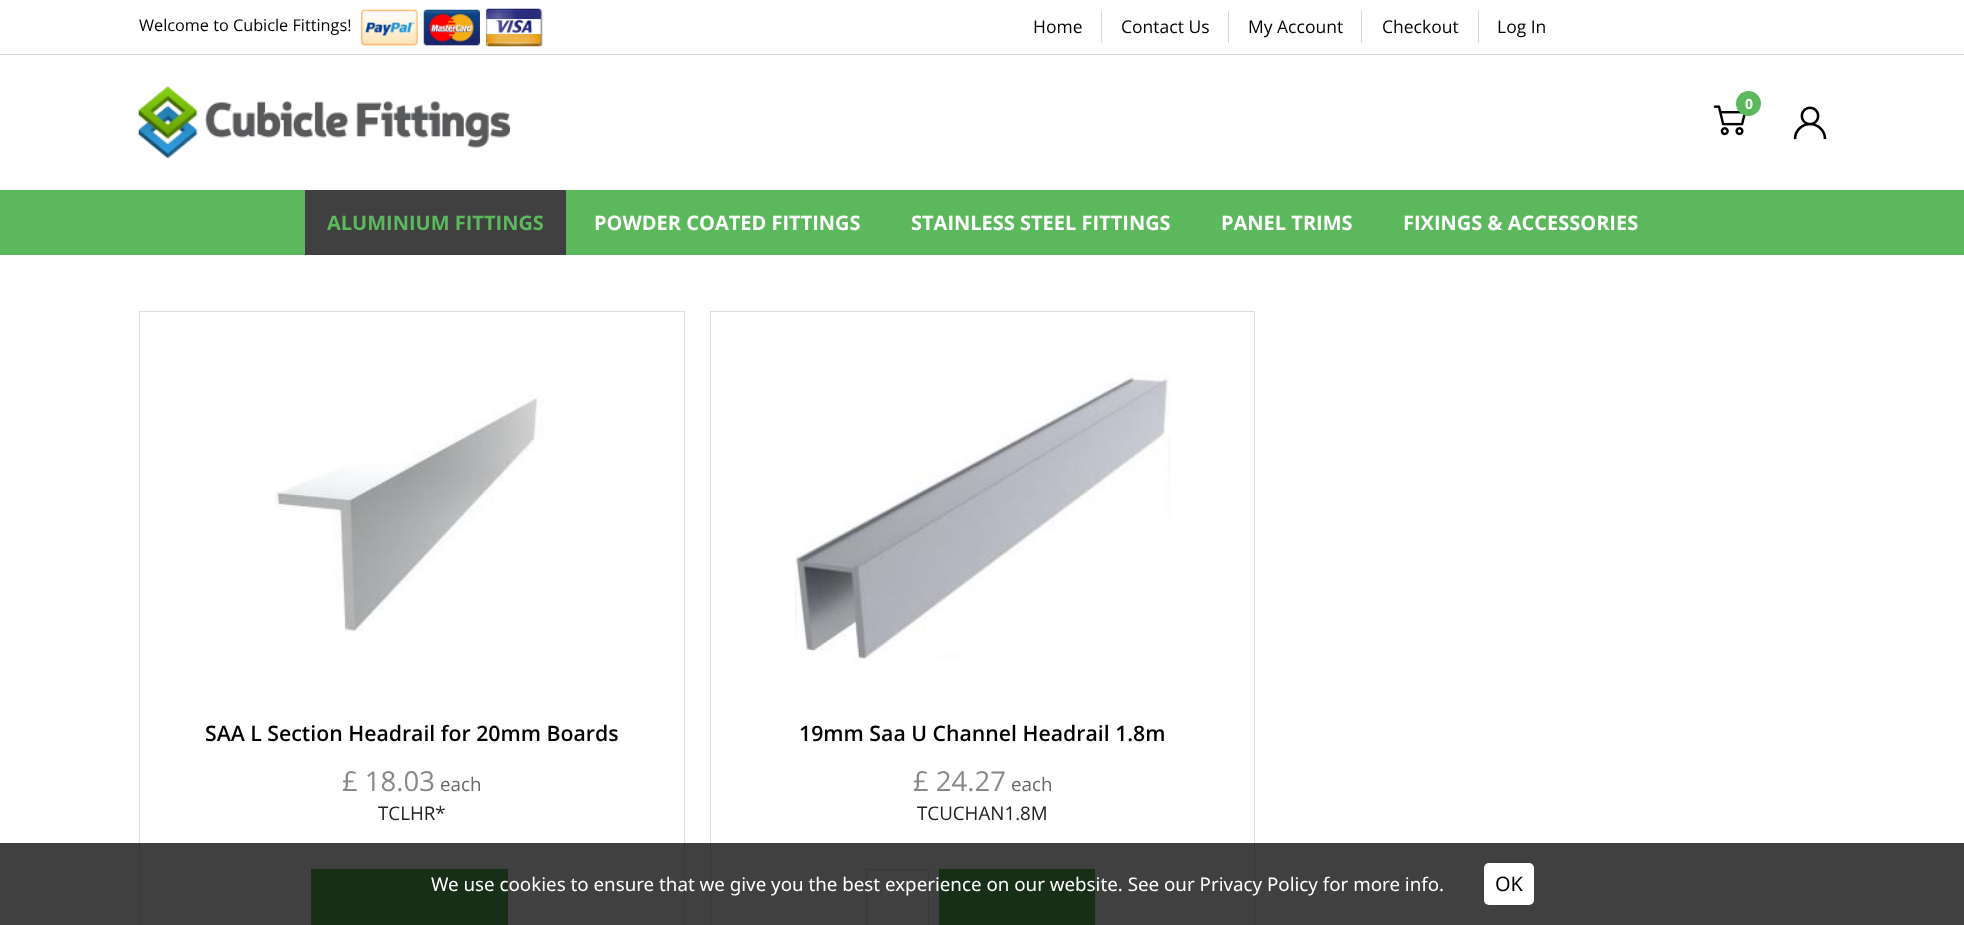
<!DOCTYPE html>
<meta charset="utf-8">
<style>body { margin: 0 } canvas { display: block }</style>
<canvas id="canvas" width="1964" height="925"></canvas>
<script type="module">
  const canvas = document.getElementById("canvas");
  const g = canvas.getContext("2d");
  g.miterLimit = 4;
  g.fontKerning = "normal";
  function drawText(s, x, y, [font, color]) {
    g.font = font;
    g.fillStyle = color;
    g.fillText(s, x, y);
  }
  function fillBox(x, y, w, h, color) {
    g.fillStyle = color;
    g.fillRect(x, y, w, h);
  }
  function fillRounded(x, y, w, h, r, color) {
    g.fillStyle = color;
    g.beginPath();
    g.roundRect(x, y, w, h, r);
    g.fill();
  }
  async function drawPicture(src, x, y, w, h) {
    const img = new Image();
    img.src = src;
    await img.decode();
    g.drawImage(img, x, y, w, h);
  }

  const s1 = ["16.25px Open Sans", "#000000"];
  const s2 = ["17.5px Open Sans", "#000000"];
  const s3 = ["bold 14px Open Sans", "#FFFFFF"];
  const s4 = ["bold 20px Open Sans", "#5CB85C"];
  const s5 = ["bold 20px Open Sans", "#FFFFFF"];
  const s6 = ["600 21.25px Open Sans", "#000000"];
  const s7 = ["27.5px Open Sans", "#888888"];
  const s8 = ["18.75px Open Sans", "#666666"];
  const s9 = ["18.75px Open Sans", "#232323"];
  const s10 = ["18.75px Noto Sans", "#FFFFFF"];
  const s11 = ["20px Noto Sans", "#000000"];

  fillBox(0, 0, 1964, 925, "#FFFFFF");
  fillBox(0, 54, 1964, 1, "#D6D6D6");
  drawText("Welcome to Cubicle Fittings!", 139, 31, s1);
  await drawPicture("pic1.png", 361, 9, 57, 37);
  await drawPicture("pic2.png", 423, 9, 57, 37);
  await drawPicture("pic3.png", 486, 8, 57, 39);
  fillBox(1101, 11, 1, 32, "#D6D6D6");
  drawText("Home", 1033, 33, s2);
  fillBox(1228, 11, 1, 32, "#D6D6D6");
  drawText("Contact Us", 1121, 33, s2);
  fillBox(1361, 11, 1, 32, "#D6D6D6");
  drawText("My Account", 1248, 33, s2);
  fillBox(1478, 11, 1, 32, "#D6D6D6");
  drawText("Checkout", 1382, 33, s2);
  drawText("Log In", 1497, 33, s2);
  await drawPicture("pic4.png", 138, 86, 372, 73);
  await drawPicture("pic5.png", 1713, 105, 33, 31);
  g.fillStyle = "#5CB85C";
  g.beginPath();
  g.arc(1748.5, 103.5, 12.5, 0, Math.PI * 2);
  g.fill();
  drawText("0", 1745, 109, s3);
  await drawPicture("pic6.png", 1793, 106, 34, 34);
  fillBox(0, 190, 1964, 65, "#5CB85C");
  fillBox(305, 190, 261, 65, "#404040");
  drawText("ALUMINIUM FITTINGS", 327, 230, s4);
  drawText("POWDER COATED FITTINGS", 594, 230, s5);
  drawText("STAINLESS STEEL FITTINGS", 911, 230, s5);
  drawText("PANEL TRIMS", 1221, 230, s5);
  drawText("FIXINGS & ACCESSORIES", 1403, 230, s5);
  g.strokeStyle = "#DDDDDD";
  g.strokeRect(139.5, 311.5, 545, 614);
  await drawPicture("pic7.png", 274, 395, 270, 237);
  drawText("SAA L Section Headrail for 20mm Boards", 205, 741, s6);
  drawText("£ 18.03", 342, 791, s7);
  drawText("each", 440, 791, s8);
  drawText("TCLHR*", 378, 820, s9);
  fillBox(311, 869, 197, 56, "#5CB85C");
  g.strokeRect(710.5, 311.5, 544, 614);
  await drawPicture("pic8.png", 795, 372, 375, 289);
  drawText("19mm Saa U Channel Headrail 1.8m", 799, 741, s6);
  drawText("£ 24.27", 913, 791, s7);
  drawText("each", 1011, 791, s8);
  drawText("TCUCHAN1.8M", 917, 820, s9);
  g.strokeRect(866.5, 869.5, 62, 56);
  fillBox(939, 869, 156, 56, "#5CB85C");
  fillBox(0, 843, 1964, 82, "rgba(0, 0, 0, 0.75)");
  drawText("We use cookies to ensure that we give you the best experience on our website. See our Privacy Policy for more info.", 431, 891, s10);
  fillRounded(1484, 863, 50, 42, 5, "#FFFFFF");
  drawText("OK", 1495, 891, s11);
</script>
